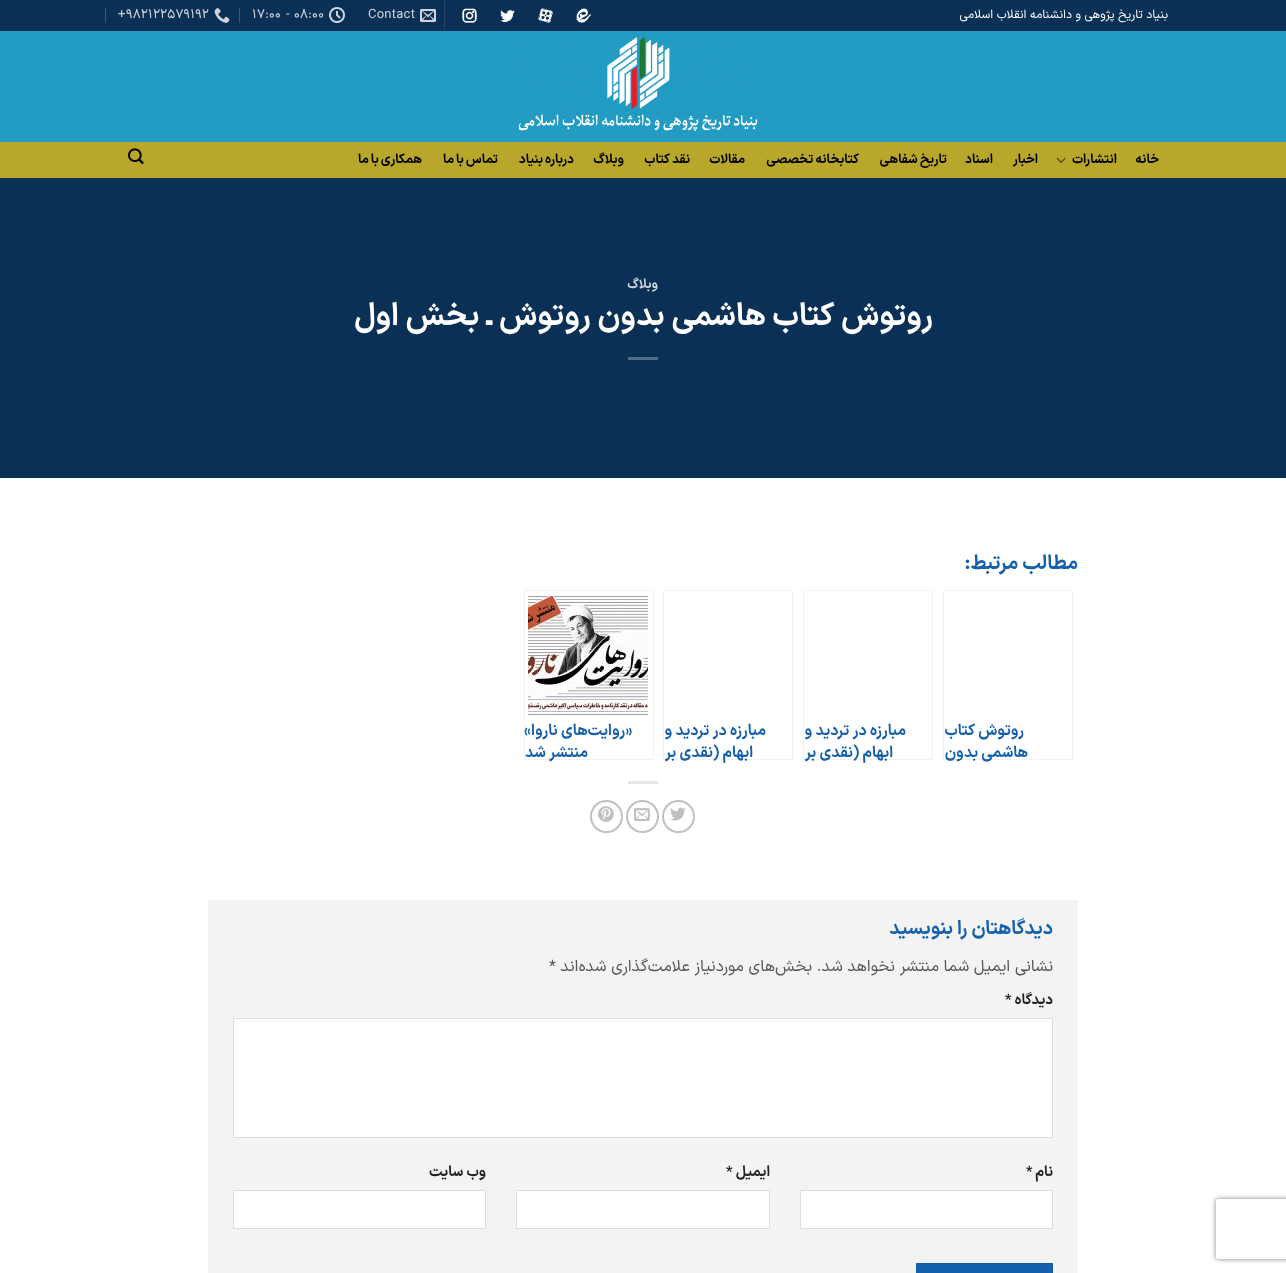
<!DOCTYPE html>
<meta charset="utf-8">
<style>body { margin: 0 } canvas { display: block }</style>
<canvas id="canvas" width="1286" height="1273"></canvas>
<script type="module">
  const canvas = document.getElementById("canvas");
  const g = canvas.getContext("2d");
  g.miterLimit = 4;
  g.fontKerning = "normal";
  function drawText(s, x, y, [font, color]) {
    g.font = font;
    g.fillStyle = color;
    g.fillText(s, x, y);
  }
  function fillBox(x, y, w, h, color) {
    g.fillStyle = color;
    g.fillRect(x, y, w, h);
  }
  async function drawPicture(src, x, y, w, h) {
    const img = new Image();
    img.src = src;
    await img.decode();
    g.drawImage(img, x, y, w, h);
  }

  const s1 = ["12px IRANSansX", "#FFFFFF"];
  const s2 = ["13px IRANSansX", "#CED6DD"];
  const s3 = ["13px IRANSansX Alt", "#CED6DD"];
  const s4 = ["bold 13px IRANSansX", "#000000"];
  const s5 = ["bold 13px IRANSansX", "#CED6DD"];
  const s6 = ["bold 31.25px IRANSansX", "#FFFFFF"];
  const s7 = ["bold 20px IRANSansX", "#1460AC"];
  const s8 = ["bold 15.5px IRANSansX", "#1460AC"];
  const s9 = ["bold 19.25px IRANSansX", "#1460AC"];
  const s10 = ["16px IRANSansX", "#555555"];
  const s11 = ["bold 14.5px IRANSansX", "#222222"];

  fillBox(0, 0, 1286, 1273, "#FFFFFF");
  fillBox(0, 0, 1286, 31, "#0A3056");
  g.direction = "rtl";
  drawText("بنیاد تاریخ پژوهی و دانشنامه انقلاب اسلامی", 1168, 18, s1);
  await drawPicture("pic1.png", 576, 8, 15, 15);
  await drawPicture("pic2.png", 538, 8, 15, 15);
  await drawPicture("pic3.png", 500, 10, 15, 13);
  await drawPicture("pic4.png", 462, 8, 15, 15);
  fillBox(444, 0, 1, 30, "#234567");
  await drawPicture("pic5.png", 420, 9, 16, 13);
  g.letterSpacing = "0.25px";
  g.direction = "ltr";
  drawText("Contact", 368, 18, s2);
  await drawPicture("pic6.png", 329, 7, 16, 16);
  drawText("08:00", 294, 18, s3);
  drawText("-", 286, 18, s2);
  drawText("17:00", 252, 18, s3);
  fillBox(239, 8, 1, 15, "#3B5978");
  await drawPicture("pic7.png", 214, 8, 16, 15);
  drawText("982122579192", 126, 18, s3);
  drawText("+", 118, 18, s2);
  fillBox(105, 8, 1, 15, "#3B5978");
  fillBox(0, 31, 1286, 111, "#239CC4");
  await drawPicture("pic8.png", 518, 37, 240, 95);
  fillBox(0, 142, 1286, 36, "#B8A72B");
  g.direction = "rtl";
  drawText("خانه", 1159, 163, s4);
  drawText("انتشارات", 1117, 163, s4);
  await drawPicture("pic9.png", 1056, 157, 10, 6);
  drawText("اخبار", 1038, 163, s4);
  drawText("اسناد", 993, 163, s4);
  g.wordSpacing = "-1px";
  drawText("تاریخ شفاهی", 947, 163, s4);
  drawText("کتابخانه تخصصی", 859, 163, s4);
  g.wordSpacing = "0px";
  drawText("مقالات", 745, 163, s4);
  g.wordSpacing = "-1px";
  drawText("نقد کتاب", 690, 163, s4);
  g.wordSpacing = "0px";
  drawText("وبلاگ", 624, 163, s4);
  g.wordSpacing = "-1px";
  drawText("درباره بنیاد", 574, 163, s4);
  drawText("تماس با ما", 498, 163, s4);
  drawText("همکاری با ما", 422, 163, s4);
  await drawPicture("pic10.png", 128, 148, 16, 16);
  fillBox(0, 178, 1286, 300, "#0A3056");
  g.letterSpacing = "0px";
  g.wordSpacing = "0px";
  drawText("وبلاگ", 658, 288, s5);
  g.wordSpacing = "0.25px";
  drawText("روتوش کتاب هاشمی بدون روتوش ـ بخش اول", 933, 325, s6);
  fillBox(628, 357, 30, 3, "#546E89");
  g.wordSpacing = "0px";
  drawText("مطالب مرتبط:", 1078, 569, s7);
  g.strokeStyle = "#F2F2F2";
  g.strokeRect(943.5, 590.5, 129, 169);
  drawText("روتوش کتاب", 1024, 735, s8);
  drawText("هاشمی بدون", 1028, 757, s8);
  g.strokeRect(803.5, 590.5, 129, 169);
  drawText("مبارزه در تردید و", 906, 735, s8);
  drawText("ابهام (نقدی بر", 893, 757, s8);
  g.strokeRect(663.5, 590.5, 129, 169);
  drawText("مبارزه در تردید و", 766, 735, s8);
  drawText("ابهام (نقدی بر", 753, 757, s8);
  g.strokeRect(524.5, 590.5, 129, 169);
  await drawPicture("pic11.png", 528, 596, 120, 120);
  drawText("«روایت‌های ناروا»", 632, 735, s8);
  drawText("منتشر شد", 588, 757, s8);
  fillBox(628, 781, 30, 3, "#E6E6E6");
  g.beginPath();
  g.arc(678.5, 816.5, 15.5, 0, Math.PI * 2);
  g.strokeStyle = "#C0C0C0";
  g.lineWidth = 2;
  g.stroke();
  await drawPicture("pic12.png", 670, 807, 16, 14);
  g.beginPath();
  g.arc(642.5, 816.5, 15.5, 0, Math.PI * 2);
  g.stroke();
  await drawPicture("pic13.png", 634, 808, 16, 13);
  g.beginPath();
  g.arc(606.5, 816.5, 15.5, 0, Math.PI * 2);
  g.stroke();
  await drawPicture("pic14.png", 598, 806, 16, 16);
  fillBox(208, 900, 870, 373, "#F3F3F3");
  drawText("دیدگاهتان را بنویسید", 1053, 934, s9);
  drawText("نشانی ایمیل شما منتشر نخواهد شد.", 1053, 971, s10);
  drawText("بخش‌های موردنیاز علامت‌گذاری شده‌اند", 812, 971, s10);
  g.direction = "ltr";
  drawText("*", 549, 971, s10);
  g.direction = "rtl";
  drawText("دیدگاه", 1053, 1004, s11);
  g.direction = "ltr";
  drawText("*", 1005, 1004, s11);
  g.fillStyle = "#FFFFFF";
  g.beginPath();
  g.rect(233.5, 1018.5, 819, 119);
  g.fill();
  g.strokeStyle = "#DDDDDD";
  g.lineWidth = 1;
  g.stroke();
  g.direction = "rtl";
  drawText("نام", 1053, 1176, s11);
  g.direction = "ltr";
  drawText("*", 1026, 1176, s11);
  g.fillStyle = "#FFFFFF";
  g.beginPath();
  g.rect(800.5, 1190.5, 252, 38);
  g.fill();
  g.stroke();
  g.direction = "rtl";
  drawText("ایمیل", 770, 1176, s11);
  g.direction = "ltr";
  drawText("*", 726, 1176, s11);
  g.fillStyle = "#FFFFFF";
  g.beginPath();
  g.rect(516.5, 1190.5, 253, 38);
  g.fill();
  g.stroke();
  g.direction = "rtl";
  drawText("وب‌ سایت", 486, 1176, s11);
  g.fillStyle = "#FFFFFF";
  g.beginPath();
  g.rect(233.5, 1190.5, 252, 38);
  g.fill();
  g.stroke();
  g.fillStyle = "#1460AC";
  g.beginPath();
  g.rect(916.5, 1263.5, 136, 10);
  g.fill();
  g.strokeStyle = "#135BA3";
  g.stroke();
  g.save();
  g.beginPath();
  g.moveTo(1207, 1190);
  g.lineTo(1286, 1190);
  g.lineTo(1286, 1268);
  g.lineTo(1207, 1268);
  g.closePath();
  g.moveTo(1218, 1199);
  g.lineTo(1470, 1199);
  g.bezierCurveTo(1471, 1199, 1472, 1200, 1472, 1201);
  g.lineTo(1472, 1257);
  g.bezierCurveTo(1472, 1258, 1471, 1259, 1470, 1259);
  g.lineTo(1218, 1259);
  g.bezierCurveTo(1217, 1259, 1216, 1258, 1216, 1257);
  g.lineTo(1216, 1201);
  g.bezierCurveTo(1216, 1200, 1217, 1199, 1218, 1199);
  g.closePath();
  g.clip("evenodd");
  g.fillStyle = "#808080";
  g.filter = "blur(2.5px)";
  g.beginPath();
  g.roundRect(1216, 1199, 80, 60, 2);
  g.fill();
  g.filter = "none";
  g.restore();
</script>
